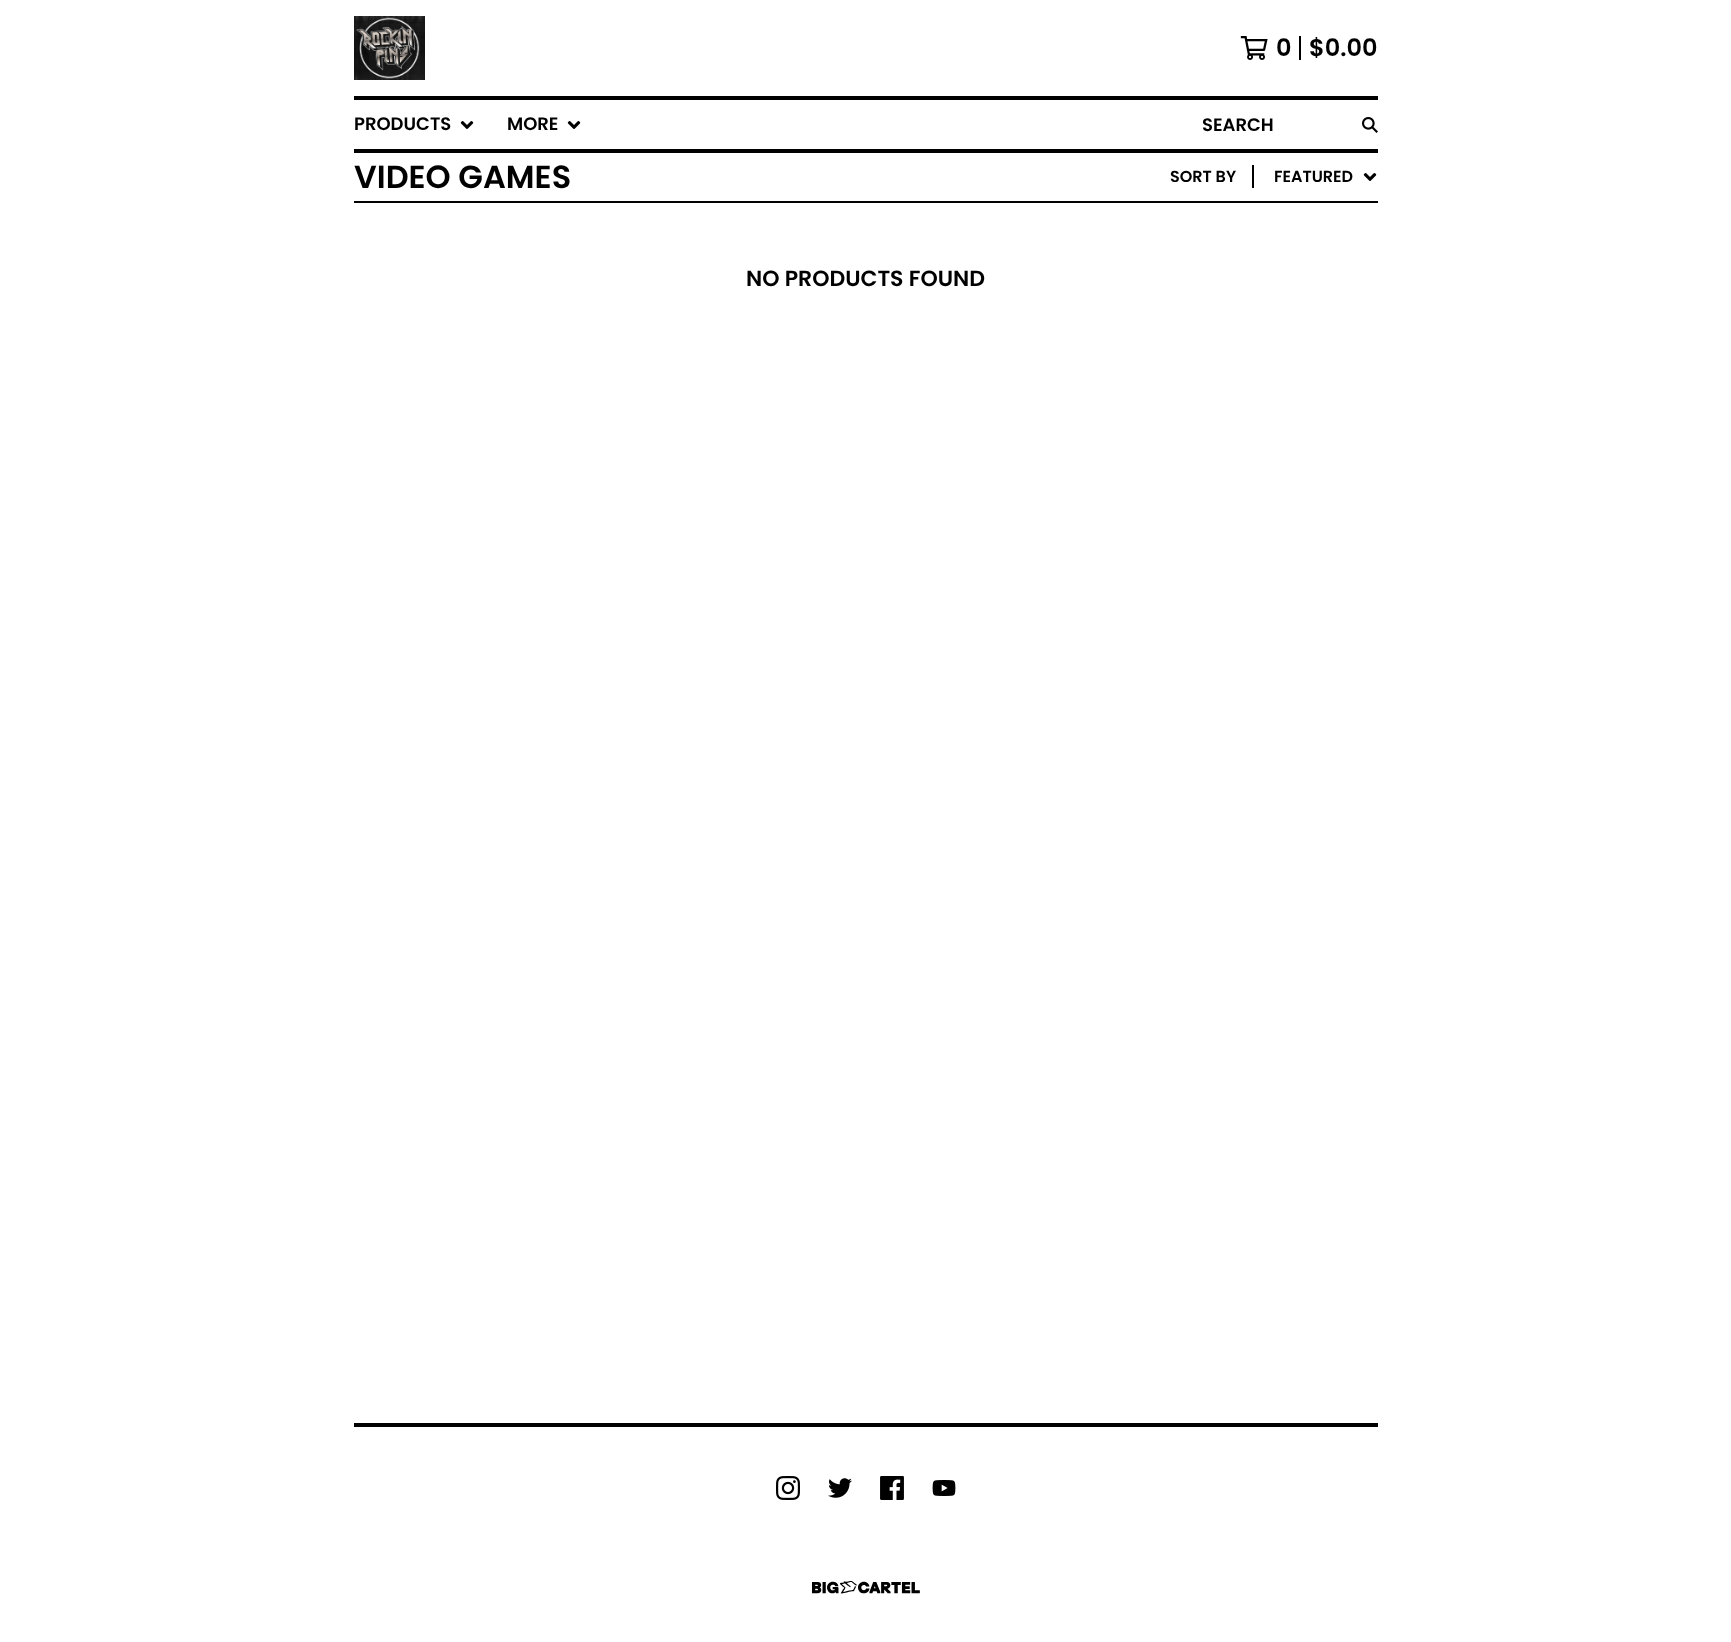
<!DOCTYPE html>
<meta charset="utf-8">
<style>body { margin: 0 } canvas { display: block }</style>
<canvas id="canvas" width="1731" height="1642"></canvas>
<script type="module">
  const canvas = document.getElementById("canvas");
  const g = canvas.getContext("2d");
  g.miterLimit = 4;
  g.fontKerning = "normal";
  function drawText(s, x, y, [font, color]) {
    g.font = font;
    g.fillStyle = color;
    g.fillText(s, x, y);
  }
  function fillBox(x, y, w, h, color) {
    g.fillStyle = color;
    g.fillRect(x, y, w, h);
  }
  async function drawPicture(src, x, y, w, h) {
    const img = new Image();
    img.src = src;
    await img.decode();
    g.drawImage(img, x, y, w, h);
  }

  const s1 = ["600 24px Poppins", "#000000"];
  const s2 = ["600 18px Poppins", "#000000"];
  const s3 = ["600 32px Poppins", "#000000"];
  const s4 = ["600 16px Poppins", "#000000"];
  const s5 = ["600 22px Poppins", "#000000"];

  fillBox(0, 0, 1731, 1642, "#FFFFFF");
  fillBox(354, 96, 1024, 4, "#000000");
  await drawPicture("pic1.png", 354, 16, 71, 64);
  await drawPicture("pic2.png", 1240, 36, 28, 24);
  fillBox(1299, 36, 2, 24, "#000000");
  drawText("0", 1276, 56, s1);
  drawText("$0.00", 1309, 56, s1);
  fillBox(354, 149, 1024, 4, "#000000");
  drawText("PRODUCTS", 354, 130, s2);
  await drawPicture("pic3.png", 460, 121, 14, 8);
  drawText("MORE", 507, 130, s2);
  await drawPicture("pic3.png", 567, 121, 14, 8);
  drawText("SEARCH", 1202, 131, s2);
  await drawPicture("pic4.png", 1362, 117, 16, 16);
  fillBox(354, 201, 1024, 2, "#000000");
  drawText("VIDEO GAMES", 354, 188, s3);
  drawText("SORT BY", 1170, 182, s4);
  fillBox(1252, 165, 2, 23, "#000000");
  drawText("FEATURED", 1274, 182, s4);
  await drawPicture("pic3.png", 1363, 173, 14, 8);
  drawText("NO PRODUCTS FOUND", 746, 286, s5);
  fillBox(354, 1423, 1024, 4, "#000000");
  await drawPicture("pic5.png", 776, 1476, 24, 24);
  await drawPicture("pic6.png", 828, 1478, 24, 20);
  await drawPicture("pic7.png", 880, 1476, 24, 24);
  await drawPicture("pic8.png", 932, 1480, 24, 16);
  await drawPicture("pic9.png", 812, 1581, 108, 13);
</script>
